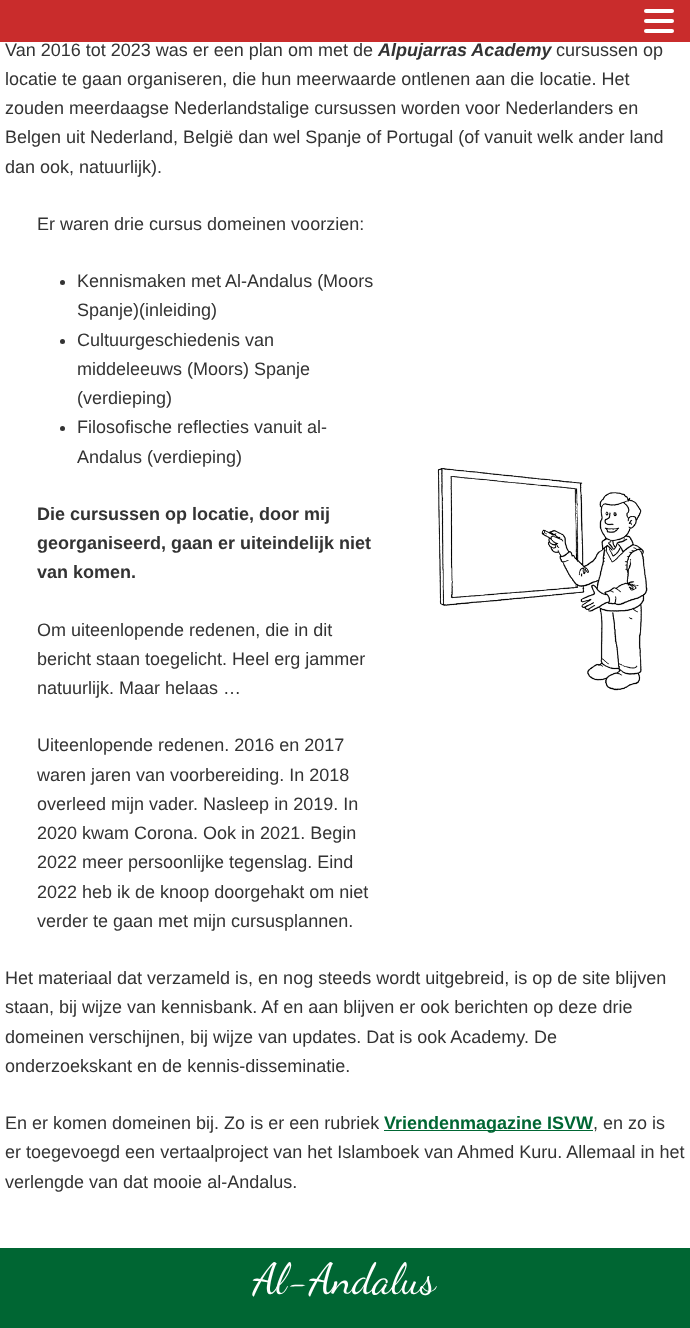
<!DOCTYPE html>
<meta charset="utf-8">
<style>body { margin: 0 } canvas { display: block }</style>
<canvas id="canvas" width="690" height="1328"></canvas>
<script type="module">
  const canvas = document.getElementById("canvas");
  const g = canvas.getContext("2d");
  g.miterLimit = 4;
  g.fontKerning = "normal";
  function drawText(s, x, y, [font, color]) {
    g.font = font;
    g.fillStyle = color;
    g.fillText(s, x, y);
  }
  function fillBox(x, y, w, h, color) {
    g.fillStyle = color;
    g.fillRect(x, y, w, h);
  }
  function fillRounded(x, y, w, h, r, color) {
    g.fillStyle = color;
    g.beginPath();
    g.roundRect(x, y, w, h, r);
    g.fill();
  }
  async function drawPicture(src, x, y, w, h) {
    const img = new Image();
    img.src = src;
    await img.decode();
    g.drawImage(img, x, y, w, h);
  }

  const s1 = ["18px Liberation Sans", "#333333"];
  const s2 = ["italic bold 18px Liberation Sans", "#333333"];
  const s3 = ["bold 18px Liberation Sans", "#333333"];
  const s4 = ["bold 18px Liberation Sans", "#006633"];
  const s5 = ["43px Dancing Script", "#FFFFFF"];

  fillBox(0, 0, 690, 1328, "#FFFFFF");
  fillBox(0, 0, 690, 42, "#C92C2C");
  fillRounded(644, 9, 30, 4, 2, "#FFFFFF");
  fillRounded(644, 19, 30, 4, 2, "#FFFFFF");
  fillRounded(644, 29, 30, 4, 2, "#FFFFFF");
  drawText("Van 2016 tot 2023 was er een plan om met de", 5, 56, s1);
  drawText("Alpujarras Academy", 378, 56, s2);
  drawText("cursussen op", 556, 56, s1);
  drawText("locatie te gaan organiseren, die hun meerwaarde ontlenen aan die locatie. Het", 5, 85, s1);
  drawText("zouden meerdaagse Nederlandstalige cursussen worden voor Nederlanders en", 5, 114, s1);
  drawText("Belgen uit Nederland, België dan wel Spanje of Portugal (of vanuit welk ander land", 5, 143, s1);
  drawText("dan ook, natuurlijk).", 5, 173, s1);
  drawText("Er waren drie cursus domeinen voorzien:", 37, 230, s1);
  g.beginPath();
  g.arc(62.5, 282.5, 2.5, 0, Math.PI * 2);
  g.fill();
  drawText("Kennismaken met Al-Andalus (Moors", 77, 287, s1);
  drawText("Spanje)(inleiding)", 77, 316, s1);
  g.beginPath();
  g.arc(62.5, 341.5, 2.5, 0, Math.PI * 2);
  g.fill();
  drawText("Cultuurgeschiedenis van", 77, 346, s1);
  drawText("middeleeuws (Moors) Spanje", 77, 375, s1);
  drawText("(verdieping)", 77, 404, s1);
  g.beginPath();
  g.arc(62.5, 428.5, 2.5, 0, Math.PI * 2);
  g.fill();
  drawText("Filosofische reflecties vanuit al-", 77, 433, s1);
  drawText("Andalus (verdieping)", 77, 463, s1);
  drawText("Die cursussen op locatie, door mij", 37, 520, s3);
  drawText("georganiseerd, gaan er uiteindelijk niet", 37, 549, s3);
  drawText("van komen.", 37, 578, s3);
  drawText("Om uiteenlopende redenen, die in dit", 37, 636, s1);
  drawText("bericht staan toegelicht. Heel erg jammer", 37, 665, s1);
  drawText("natuurlijk. Maar helaas …", 37, 694, s1);
  drawText("Uiteenlopende redenen. 2016 en 2017", 37, 751, s1);
  drawText("waren jaren van voorbereiding. In 2018", 37, 781, s1);
  drawText("overleed mijn vader. Nasleep in 2019. In", 37, 810, s1);
  drawText("2020 kwam Corona. Ook in 2021. Begin", 37, 839, s1);
  drawText("2022 meer persoonlijke tegenslag. Eind", 37, 868, s1);
  drawText("2022 heb ik de knoop doorgehakt om niet", 37, 898, s1);
  drawText("verder te gaan met mijn cursusplannen.", 37, 927, s1);
  await drawPicture("pic1.png", 437, 467, 211, 224);
  drawText("Het materiaal dat verzameld is, en nog steeds wordt uitgebreid, is op de site blijven", 5, 984, s1);
  drawText("staan, bij wijze van kennisbank. Af en aan blijven er ook berichten op deze drie", 5, 1013, s1);
  drawText("domeinen verschijnen, bij wijze van updates. Dat is ook Academy. De", 5, 1043, s1);
  drawText("onderzoekskant en de kennis-disseminatie.", 5, 1072, s1);
  drawText("En er komen domeinen bij. Zo is er een rubriek", 5, 1129, s1);
  fillBox(384, 1130, 209, 1, "#006633");
  drawText("Vriendenmagazine ISVW", 384, 1129, s4);
  drawText(", en zo is", 593, 1129, s1);
  drawText("er toegevoegd een vertaalproject van het Islamboek van Ahmed Kuru. Allemaal in het", 5, 1158, s1);
  drawText("verlengde van dat mooie al-Andalus.", 5, 1188, s1);
  fillBox(0, 1248, 690, 80, "#006633");
  drawText("Al-Andalus", 253, 1293, s5);
</script>
